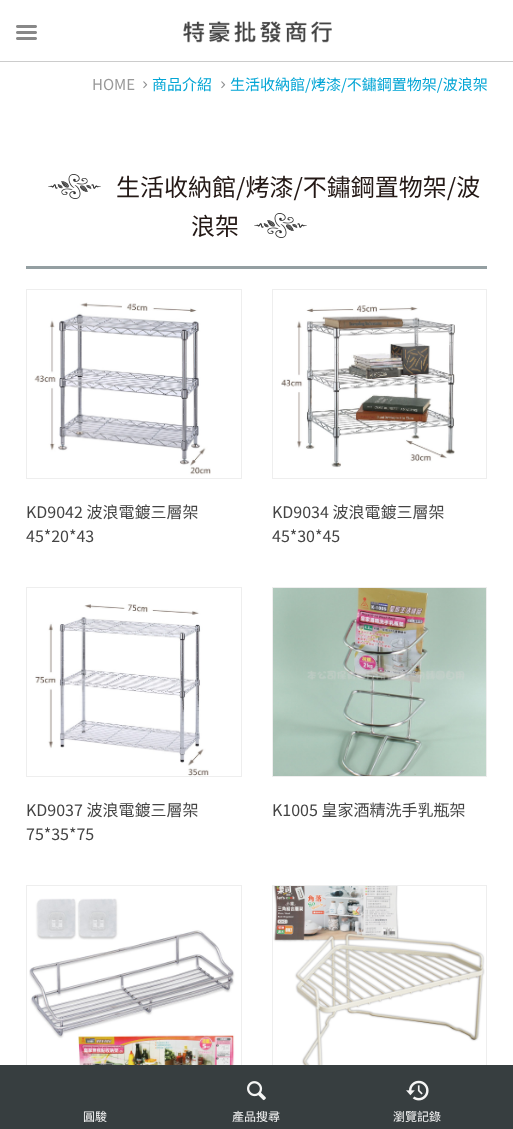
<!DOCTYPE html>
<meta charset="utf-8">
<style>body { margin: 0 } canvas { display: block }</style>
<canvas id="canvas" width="513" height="1129"></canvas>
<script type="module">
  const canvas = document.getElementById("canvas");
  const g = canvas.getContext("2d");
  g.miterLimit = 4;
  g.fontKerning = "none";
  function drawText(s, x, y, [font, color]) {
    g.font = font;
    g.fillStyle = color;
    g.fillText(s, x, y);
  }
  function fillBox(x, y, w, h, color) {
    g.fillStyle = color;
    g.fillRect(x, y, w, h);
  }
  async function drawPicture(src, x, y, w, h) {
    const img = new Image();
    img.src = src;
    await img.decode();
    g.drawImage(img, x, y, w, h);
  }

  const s1 = ["15px Noto Sans TC", "#999999"];
  const s2 = ["15px Noto Sans TC", "#03A5D5"];
  const s3 = ["24px Noto Sans TC", "#231815"];
  const s4 = ["16px Noto Sans TC", "#444444"];
  const s5 = ["12px Noto Sans TC", "#F5F5F5"];

  fillBox(0, 0, 513, 1129, "#FFFFFF");
  fillBox(0, 61, 513, 1, "#CCCCCC");
  await drawPicture("pic1.png", 16, 25, 21, 15);
  await drawPicture("pic2.png", 183, 21, 149, 22);
  drawText("HOME", 92, 90, s1);
  await drawPicture("pic3.png", 143, 81, 5, 8);
  drawText("商品介紹", 152, 90, s2);
  await drawPicture("pic3.png", 221, 81, 5, 8);
  drawText("生活收納館/烤漆/不鏽鋼置物架/波浪架", 230, 90, s2);
  fillBox(26, 266, 461, 3, "#949FA2");
  await drawPicture("pic4.png", 48, 174, 53, 25);
  drawText("生活收納館/烤漆/不鏽鋼置物架/波", 116, 196, s3);
  drawText("浪架", 191, 235, s3);
  await drawPicture("pic4.png", 254, 213, 53, 25);
  g.strokeStyle = "#EEEEEE";
  g.strokeRect(26.5, 289.5, 215, 189);
  await drawPicture("pic5.png", 34, 302, 177, 173);
  drawText("KD9042 波浪電鍍三層架", 26, 518, s4);
  drawText("45*20*43", 26, 542, s4);
  g.strokeRect(272.5, 289.5, 214, 189);
  await drawPicture("pic6.png", 281, 305, 174, 163);
  drawText("KD9034 波浪電鍍三層架", 272, 518, s4);
  drawText("45*30*45", 272, 542, s4);
  g.strokeRect(26.5, 587.5, 215, 189);
  await drawPicture("pic7.png", 35, 604, 174, 172);
  drawText("KD9037 波浪電鍍三層架", 26, 816, s4);
  drawText("75*35*75", 26, 840, s4);
  g.strokeRect(272.5, 587.5, 214, 189);
  await drawPicture("pic8.png", 273, 588, 213, 188);
  drawText("K1005 皇家酒精洗手乳瓶架", 272, 816, s4);
  g.strokeRect(26.5, 885.5, 215, 189);
  await drawPicture("pic9.png", 29, 898, 206, 167);
  g.strokeRect(272.5, 885.5, 214, 189);
  await drawPicture("pic10.png", 273, 886, 212, 179);
  fillBox(0, 1065, 513, 64, "#373E40");
  drawText("圓駿", 83, 1121, s5);
  await drawPicture("pic11.png", 247, 1081, 19, 20);
  drawText("產品搜尋", 232, 1121, s5);
  await drawPicture("pic12.png", 406, 1080, 23, 21);
  drawText("瀏覽記錄", 393, 1121, s5);
</script>
